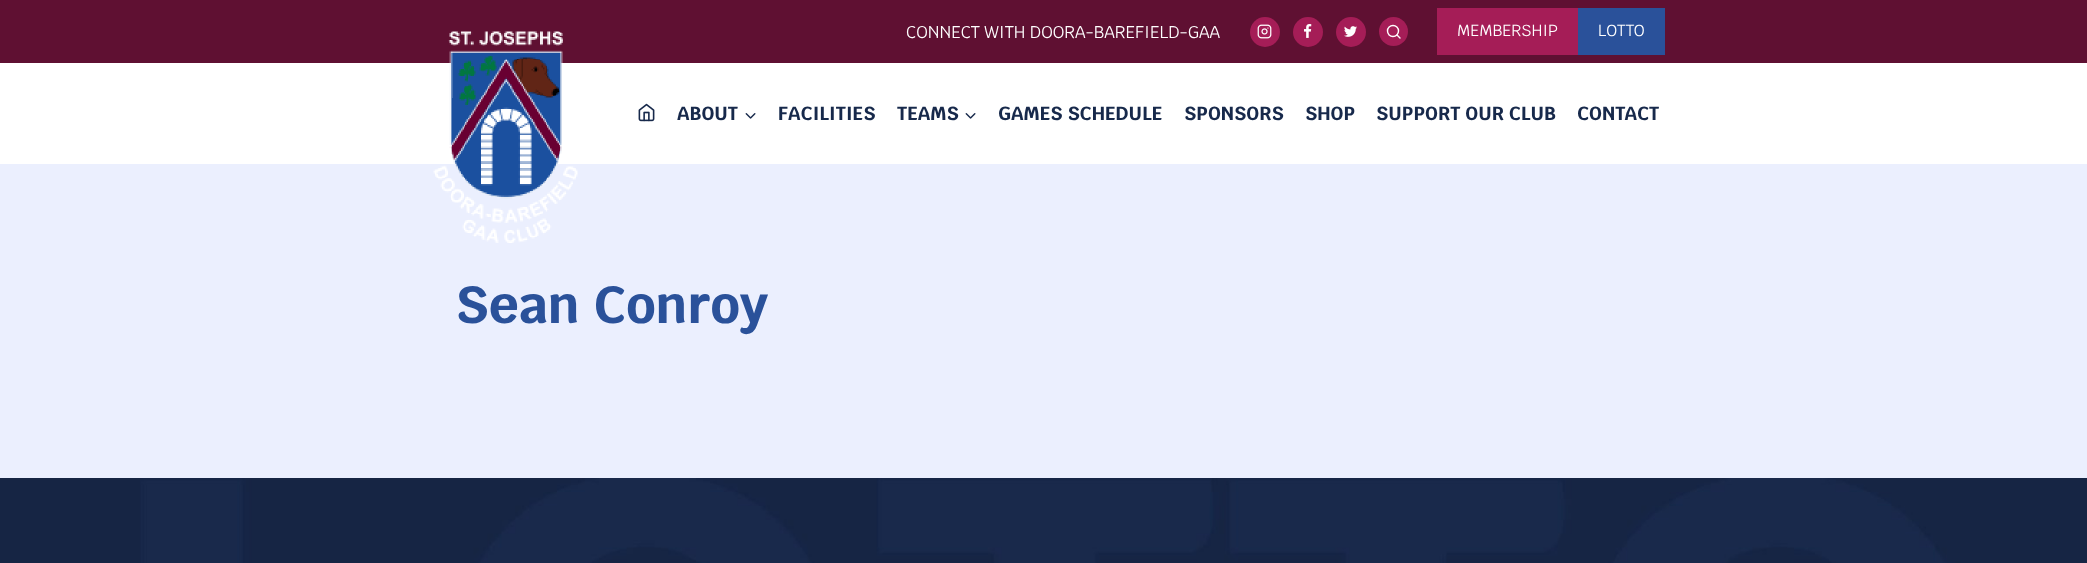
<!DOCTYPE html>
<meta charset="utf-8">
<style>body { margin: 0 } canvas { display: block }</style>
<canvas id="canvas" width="2087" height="563"></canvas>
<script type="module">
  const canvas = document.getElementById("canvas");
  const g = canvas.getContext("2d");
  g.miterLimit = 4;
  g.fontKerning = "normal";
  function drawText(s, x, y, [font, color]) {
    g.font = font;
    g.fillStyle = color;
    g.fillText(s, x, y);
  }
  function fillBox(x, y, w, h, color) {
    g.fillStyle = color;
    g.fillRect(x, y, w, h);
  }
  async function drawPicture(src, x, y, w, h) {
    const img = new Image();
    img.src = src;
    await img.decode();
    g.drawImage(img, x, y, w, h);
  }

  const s1 = ["17px Krub", "#FFFFFF"];
  const s2 = ["16px Krub", "#FFFFFF"];
  const s3 = ["bold 19px Krub", "#17294B"];
  const s4 = ["bold 52px Krub", "#2A519A"];

  fillBox(0, 0, 2087, 563, "#EBEFFE");
  fillBox(0, 63, 2087, 101, "#FFFFFF");
  fillBox(0, 0, 2087, 63, "#5F1032");
  drawText("CONNECT WITH DOORA-BAREFIELD-GAA", 906, 38, s1);
  g.fillStyle = "#A51D57";
  g.beginPath();
  g.arc(1265, 32, 15, 0, Math.PI * 2);
  g.fill();
  await drawPicture("pic1.png", 1257, 24, 15, 15);
  g.beginPath();
  g.arc(1308, 32, 15, 0, Math.PI * 2);
  g.fill();
  await drawPicture("pic2.png", 1304, 24, 8, 14);
  g.beginPath();
  g.arc(1351, 32, 15, 0, Math.PI * 2);
  g.fill();
  await drawPicture("pic3.png", 1344, 26, 13, 11);
  g.beginPath();
  g.arc(1393.5, 31.5, 14.5, 0, Math.PI * 2);
  g.fill();
  g.beginPath();
  g.arc(1393, 31, 5.5, 0, Math.PI * 2);
  g.strokeStyle = "#FFFFFF";
  g.lineWidth = 1.4;
  g.stroke();
  g.beginPath();
  g.moveTo(1400, 38);
  g.lineTo(1397, 35);
  g.lineCap = "round";
  g.lineJoin = "round";
  g.stroke();
  fillBox(1437, 8, 141, 47, "#A51D57");
  drawText("MEMBERSHIP", 1457, 36, s2);
  fillBox(1578, 8, 87, 47, "#2A519A");
  drawText("LOTTO", 1598, 36, s2);
  await drawPicture("pic4.png", 433, 31, 145, 212);
  await drawPicture("pic5.png", 638, 103, 17, 19);
  drawText("ABOUT", 677, 120, s3);
  await drawPicture("pic6.png", 745, 113, 11, 6);
  drawText("FACILITIES", 778, 120, s3);
  drawText("TEAMS", 897, 120, s3);
  await drawPicture("pic6.png", 965, 113, 11, 6);
  drawText("GAMES SCHEDULE", 998, 120, s3);
  drawText("SPONSORS", 1184, 120, s3);
  drawText("SHOP", 1305, 120, s3);
  drawText("SUPPORT OUR CLUB", 1376, 120, s3);
  drawText("CONTACT", 1577, 120, s3);
  drawText("Sean Conroy", 455, 323, s4);
  await drawPicture("pic7.png", 0, 478, 2087, 85);
</script>
